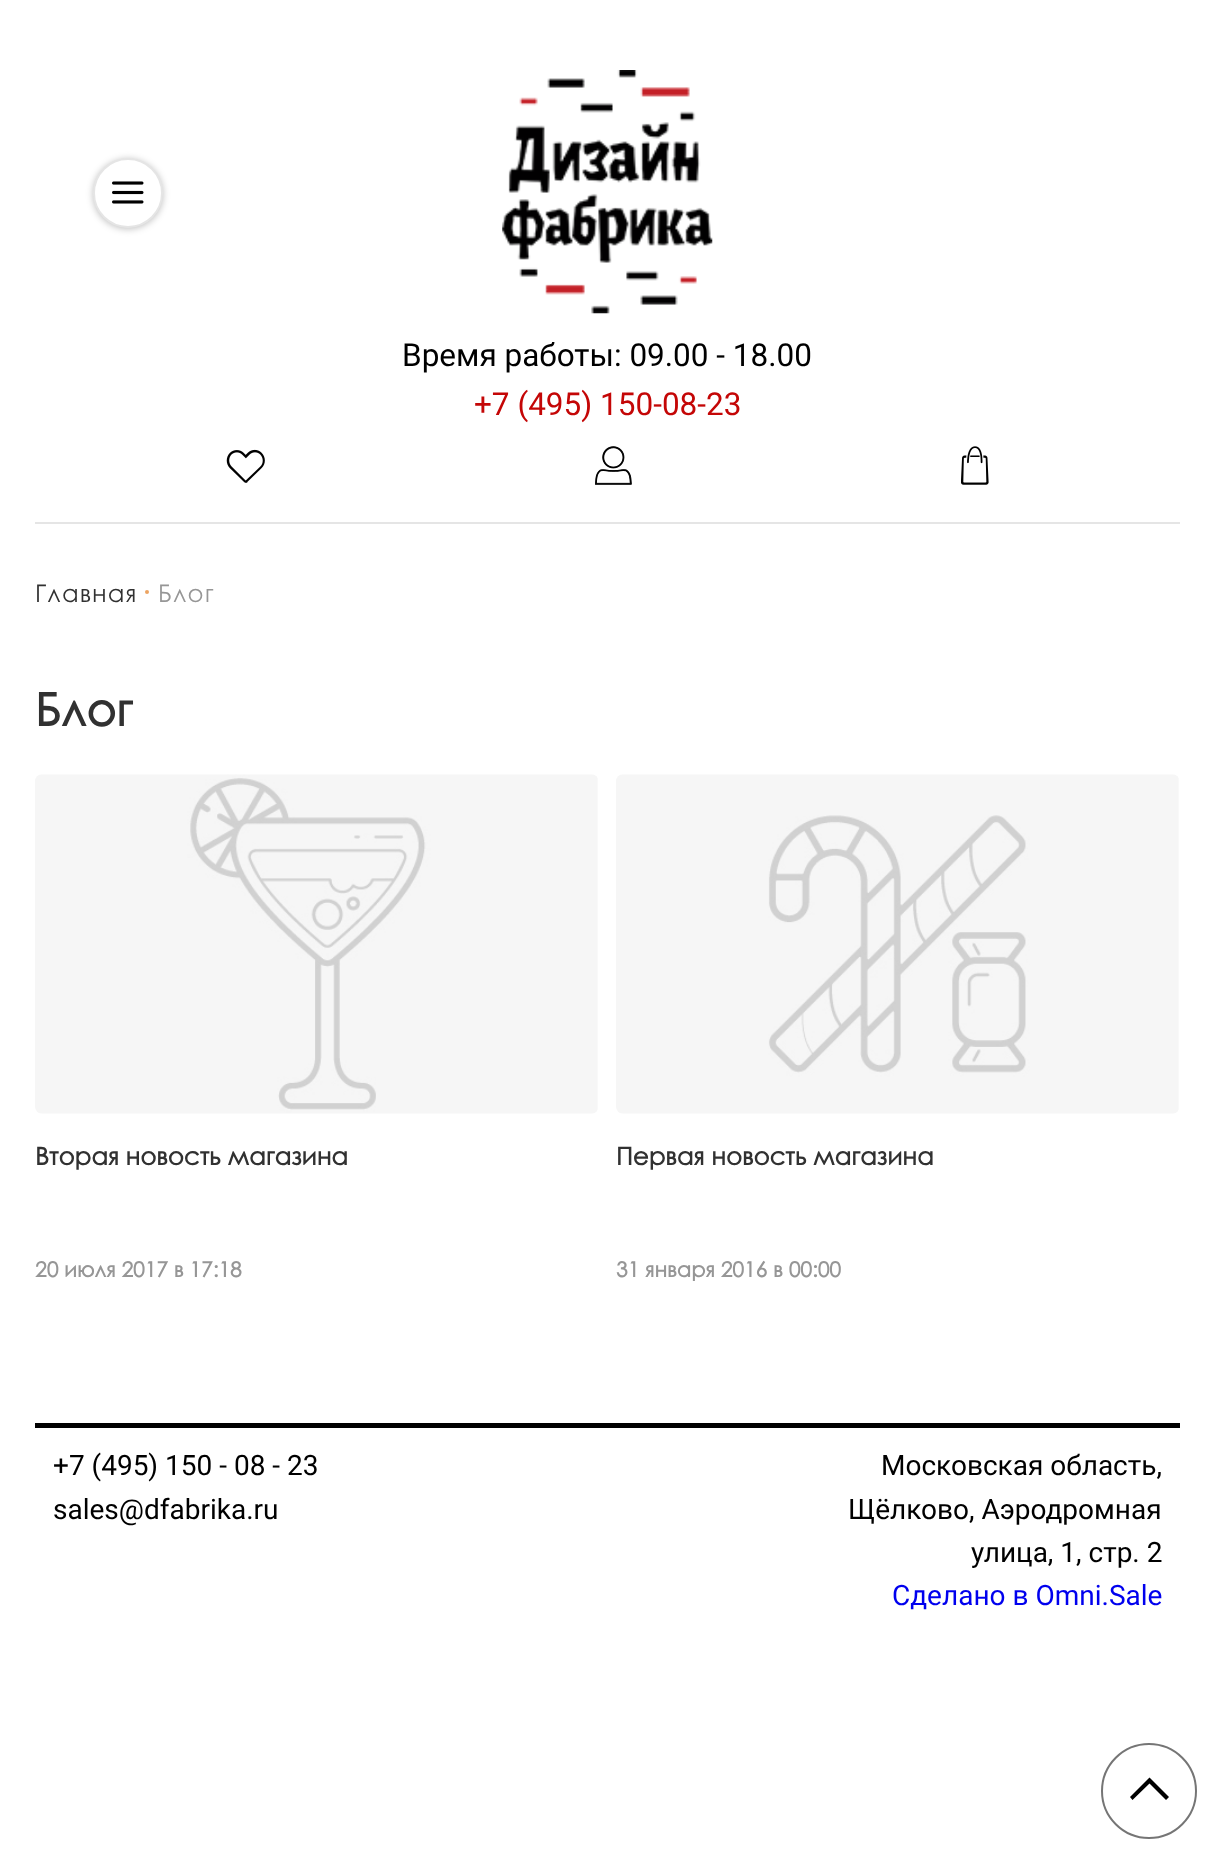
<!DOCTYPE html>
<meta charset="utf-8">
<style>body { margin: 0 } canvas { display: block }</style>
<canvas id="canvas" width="1213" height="1856"></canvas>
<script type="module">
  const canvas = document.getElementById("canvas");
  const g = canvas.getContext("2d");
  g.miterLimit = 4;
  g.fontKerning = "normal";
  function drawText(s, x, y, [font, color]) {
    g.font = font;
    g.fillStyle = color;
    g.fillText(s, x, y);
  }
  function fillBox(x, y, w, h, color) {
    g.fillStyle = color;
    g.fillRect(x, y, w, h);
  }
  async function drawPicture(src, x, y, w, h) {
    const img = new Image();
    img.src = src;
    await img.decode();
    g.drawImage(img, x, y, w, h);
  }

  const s1 = ["31.5px Roboto", "#000000"];
  const s2 = ["31.5px Roboto", "#C40606"];
  const s3 = ["24.5px Century Gothic", "#313131"];
  const s4 = ["24.5px Century Gothic", "#969696"];
  const s5 = ["bold 45.5px Century Gothic", "#313131"];
  const s6 = ["bold 24.5px Century Gothic", "#313131"];
  const s7 = ["bold 21px Century Gothic", "#969696"];
  const s8 = ["28px Roboto", "#000000"];
  const s9 = ["28px Roboto", "#0000EE"];

  fillBox(0, 0, 1213, 1856, "#FFFFFF");
  fillBox(35, 522, 1145, 2, "#E5E5E5");
  g.fillStyle = "rgba(0, 0, 0, 0.25)";
  g.filter = "blur(3.5px)";
  g.beginPath();
  g.roundRect(93, 159, 70, 70, 35);
  g.fill();
  g.filter = "none";
  g.fillStyle = "#FFFFFF";
  g.beginPath();
  g.arc(128, 193, 34, 0, Math.PI * 2);
  g.fill();
  g.strokeStyle = "#E5E5E5";
  g.lineWidth = 2;
  g.stroke();
  await drawPicture("pic1.png", 112, 181, 32, 23);
  await drawPicture("pic2.png", 502, 70, 211, 244);
  drawText("Время работы: 09.00 - 18.00", 402, 366, s1);
  drawText("+7 (495) 150-08-23", 474, 415, s2);
  await drawPicture("pic3.png", 226, 449, 39, 34);
  await drawPicture("pic4.png", 595, 446, 37, 39);
  await drawPicture("pic5.png", 961, 446, 28, 39);
  g.letterSpacing = "1px";
  drawText("Главная", 35, 602, s3);
  g.fillStyle = "#ECA462";
  g.beginPath();
  g.arc(147, 592, 2, 0, Math.PI * 2);
  g.fill();
  drawText("Блог", 158, 602, s4);
  g.letterSpacing = "0px";
  drawText("Блог", 35, 726, s5);
  await drawPicture("pic6.png", 35, 774, 563, 340);
  drawText("Вторая новость магазина", 35, 1165, s6);
  drawText("20 июля 2017 в 17:18", 35, 1277, s7);
  await drawPicture("pic7.png", 616, 774, 563, 340);
  drawText("Первая новость магазина", 616, 1165, s6);
  drawText("31 января 2016 в 00:00", 616, 1277, s7);
  fillBox(35, 1423, 1145, 5, "#000000");
  drawText("+7 (495) 150 - 08 - 23", 53, 1475, s8);
  drawText("sales@dfabrika.ru", 53, 1519, s8);
  drawText("Московская область,", 881, 1475, s8);
  drawText("Щёлково, Аэродромная", 848, 1519, s8);
  drawText("улица, 1, стр. 2", 971, 1562, s8);
  drawText("Сделано в Omni.Sale", 892, 1605, s9);
  g.beginPath();
  g.arc(1149, 1791, 47, 0, Math.PI * 2);
  g.strokeStyle = "#757575";
  g.stroke();
  g.fillStyle = "#000000";
  g.beginPath();
  g.moveTo(1130, 1797);
  g.lineTo(1149.5, 1777.5);
  g.lineTo(1169, 1797);
  g.lineTo(1166, 1800);
  g.lineTo(1149.5, 1783.5);
  g.lineTo(1132.5, 1800);
  g.closePath();
  g.fill();
</script>
